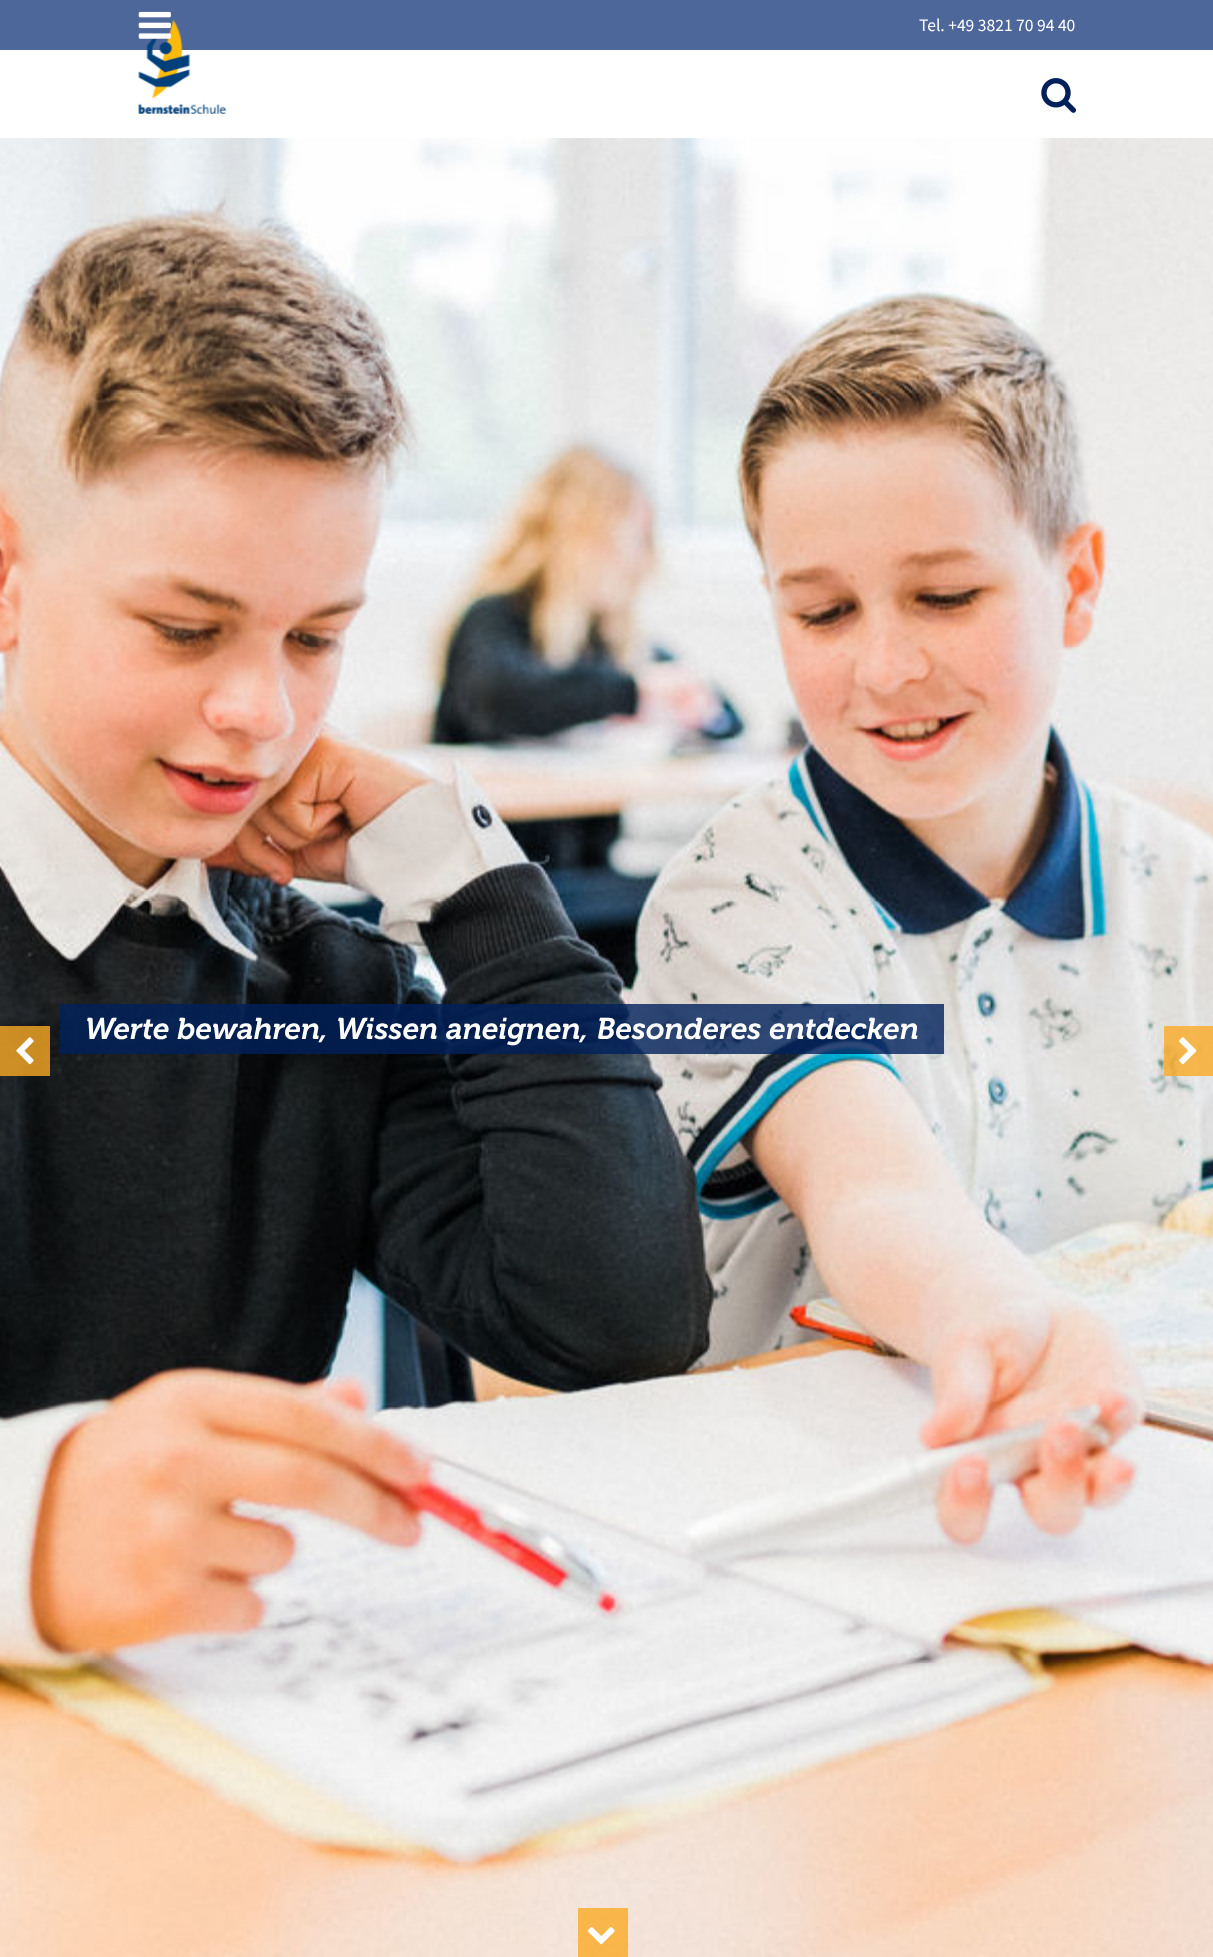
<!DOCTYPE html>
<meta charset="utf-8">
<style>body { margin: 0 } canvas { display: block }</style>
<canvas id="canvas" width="1213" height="1957"></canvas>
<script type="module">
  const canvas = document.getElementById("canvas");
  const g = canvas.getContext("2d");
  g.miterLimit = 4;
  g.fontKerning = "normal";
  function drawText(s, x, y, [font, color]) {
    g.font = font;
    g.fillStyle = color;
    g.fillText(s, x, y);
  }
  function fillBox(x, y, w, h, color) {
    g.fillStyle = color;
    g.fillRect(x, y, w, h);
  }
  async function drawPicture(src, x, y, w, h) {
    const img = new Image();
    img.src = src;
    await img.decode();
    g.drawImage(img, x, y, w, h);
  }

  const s1 = ["17.5px Source Sans Pro", "#FFFFFF"];
  const s2 = ["italic 600 30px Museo", "#FFFFFF"];

  fillBox(0, 0, 1213, 1957, "#FFFFFF");
  fillBox(0, 0, 1213, 50, "#4E679B");
  await drawPicture("pic2.png", 138, 20, 88, 94);
  await drawPicture("pic1.png", 138, 11, 33, 28);
  await drawPicture("pic3.png", 1041, 78, 36, 35);
  drawText("Tel. +49 3821 70 94 40", 919, 31, s1);
  await drawPicture("pic5.png", 0, 138, 1213, 1819);
  fillBox(0, 1026, 50, 50, "rgba(250, 170, 38, 0.8)");
  await drawPicture("pic4.png", 16, 1037, 18, 28);
  fillBox(60, 1004, 884, 50, "rgba(0, 32, 91, 0.8)");
  drawText("Werte bewahren, Wissen aneignen, Besonderes entdecken", 85, 1039, s2);
  fillBox(1164, 1026, 49, 50, "rgba(250, 170, 38, 0.8)");
  await drawPicture("pic6.png", 1179, 1037, 18, 28);
  fillBox(578, 1908, 50, 49, "rgba(250, 170, 38, 0.8)");
  await drawPicture("pic7.png", 587, 1927, 28, 18);
</script>
